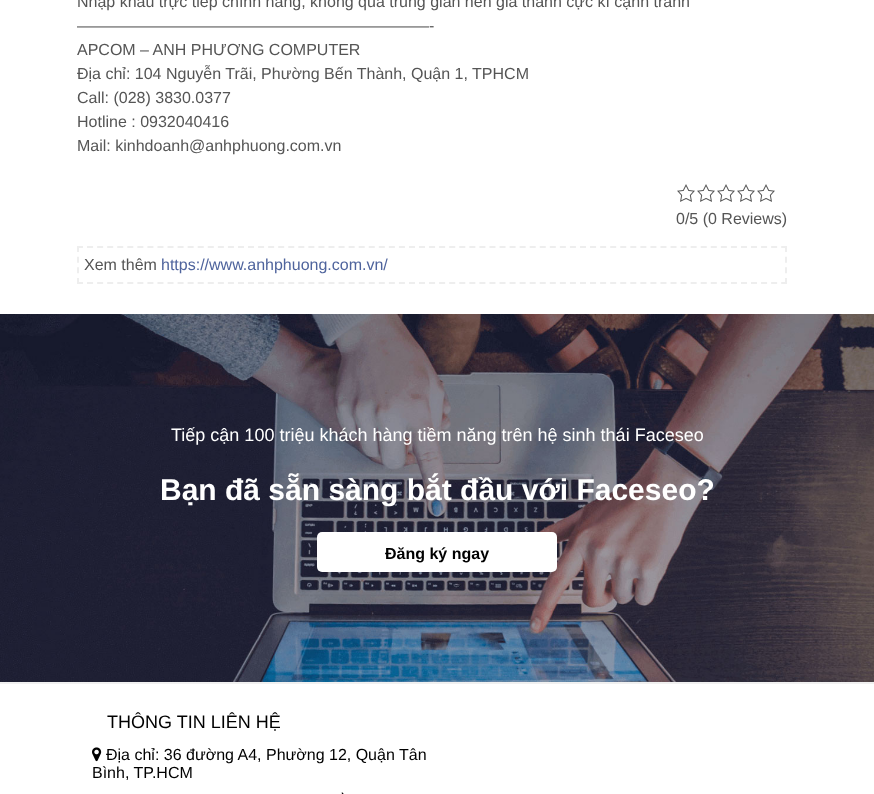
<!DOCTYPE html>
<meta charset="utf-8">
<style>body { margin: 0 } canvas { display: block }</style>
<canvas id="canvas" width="874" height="794"></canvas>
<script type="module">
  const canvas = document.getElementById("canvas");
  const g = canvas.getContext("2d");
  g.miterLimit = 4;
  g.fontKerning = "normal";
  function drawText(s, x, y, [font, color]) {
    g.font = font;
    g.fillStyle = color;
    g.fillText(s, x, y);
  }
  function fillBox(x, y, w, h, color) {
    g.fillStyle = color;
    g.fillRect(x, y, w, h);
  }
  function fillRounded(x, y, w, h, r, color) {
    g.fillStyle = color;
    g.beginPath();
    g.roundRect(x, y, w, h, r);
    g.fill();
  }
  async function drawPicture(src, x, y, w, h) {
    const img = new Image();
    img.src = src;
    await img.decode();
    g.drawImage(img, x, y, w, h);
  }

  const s1 = ["16px Liberation Sans", "#555555"];
  const s2 = ["16px Liberation Sans", "#4F649D"];
  const s3 = ["18px Liberation Sans", "#FFFFFF"];
  const s4 = ["bold 30px Liberation Sans", "#FFFFFF"];
  const s5 = ["bold 16px Liberation Sans", "#000000"];
  const s6 = ["18px Liberation Sans", "#000000"];
  const s7 = ["16px Liberation Sans", "#000000"];

  fillBox(0, 0, 874, 794, "#FFFFFF");
  drawText("Nhập khẩu trực tiếp chính hãng, không qua trung gian nên giá thành cực kì cạnh tranh", 77, 7, s1);
  drawText("——————————————————————-", 77, 31, s1);
  drawText("APCOM – ANH PHƯƠNG COMPUTER", 77, 55, s1);
  drawText("Địa chỉ: 104 Nguyễn Trãi, Phường Bến Thành, Quận 1, TPHCM", 77, 79, s1);
  drawText("Call: (028) 3830.0377", 77, 103, s1);
  drawText("Hotline : 0932040416", 77, 127, s1);
  drawText("Mail: kinhdoanh@anhphuong.com.vn", 77, 151, s1);
  await drawPicture("pic1.png", 677, 184, 18, 18);
  await drawPicture("pic1.png", 697, 184, 18, 18);
  await drawPicture("pic1.png", 717, 184, 18, 18);
  await drawPicture("pic1.png", 737, 184, 18, 18);
  await drawPicture("pic1.png", 757, 184, 18, 18);
  drawText("0/5 (0 Reviews)", 676, 224, s1);
  g.beginPath();
  g.moveTo(77, 247);
  g.lineTo(787, 247);
  g.strokeStyle = "#EEEEEE";
  g.lineWidth = 2;
  g.setLineDash([6, 4.06]);
  g.stroke();
  g.beginPath();
  g.moveTo(786, 246);
  g.lineTo(786, 284);
  g.setLineDash([6, 4.67]);
  g.stroke();
  g.beginPath();
  g.moveTo(77, 283);
  g.lineTo(787, 283);
  g.setLineDash([6, 4.06]);
  g.stroke();
  g.beginPath();
  g.moveTo(78, 246);
  g.lineTo(78, 284);
  g.setLineDash([6, 4.67]);
  g.stroke();
  drawText("Xem thêm", 84, 270, s1);
  drawText("https://www.anhphuong.com.vn/", 161, 270, s2);
  await drawPicture("pic2.png", 0, 314, 874, 368);
  drawText("Tiếp cận 100 triệu khách hàng tiềm năng trên hệ sinh thái Faceseo", 171, 441, s3);
  drawText("Bạn đã sẵn sàng bắt đầu với Faceseo?", 160, 500, s4);
  fillRounded(317, 532, 240, 40, 5, "#FFFFFF");
  drawText("Đăng ký ngay", 385, 559, s5);
  fillBox(0, 682, 874, 2, "#F0F0F0");
  drawText("THÔNG TIN LIÊN HỆ", 107, 728, s6);
  await drawPicture("pic3.png", 92, 747, 10, 15);
  drawText("Địa chỉ: 36 đường A4, Phường 12, Quận Tân", 106, 760, s7);
  drawText("Bình, TP.HCM", 92, 778, s7);
  await drawPicture("pic4.png", 341, 792, 3, 2);
</script>
